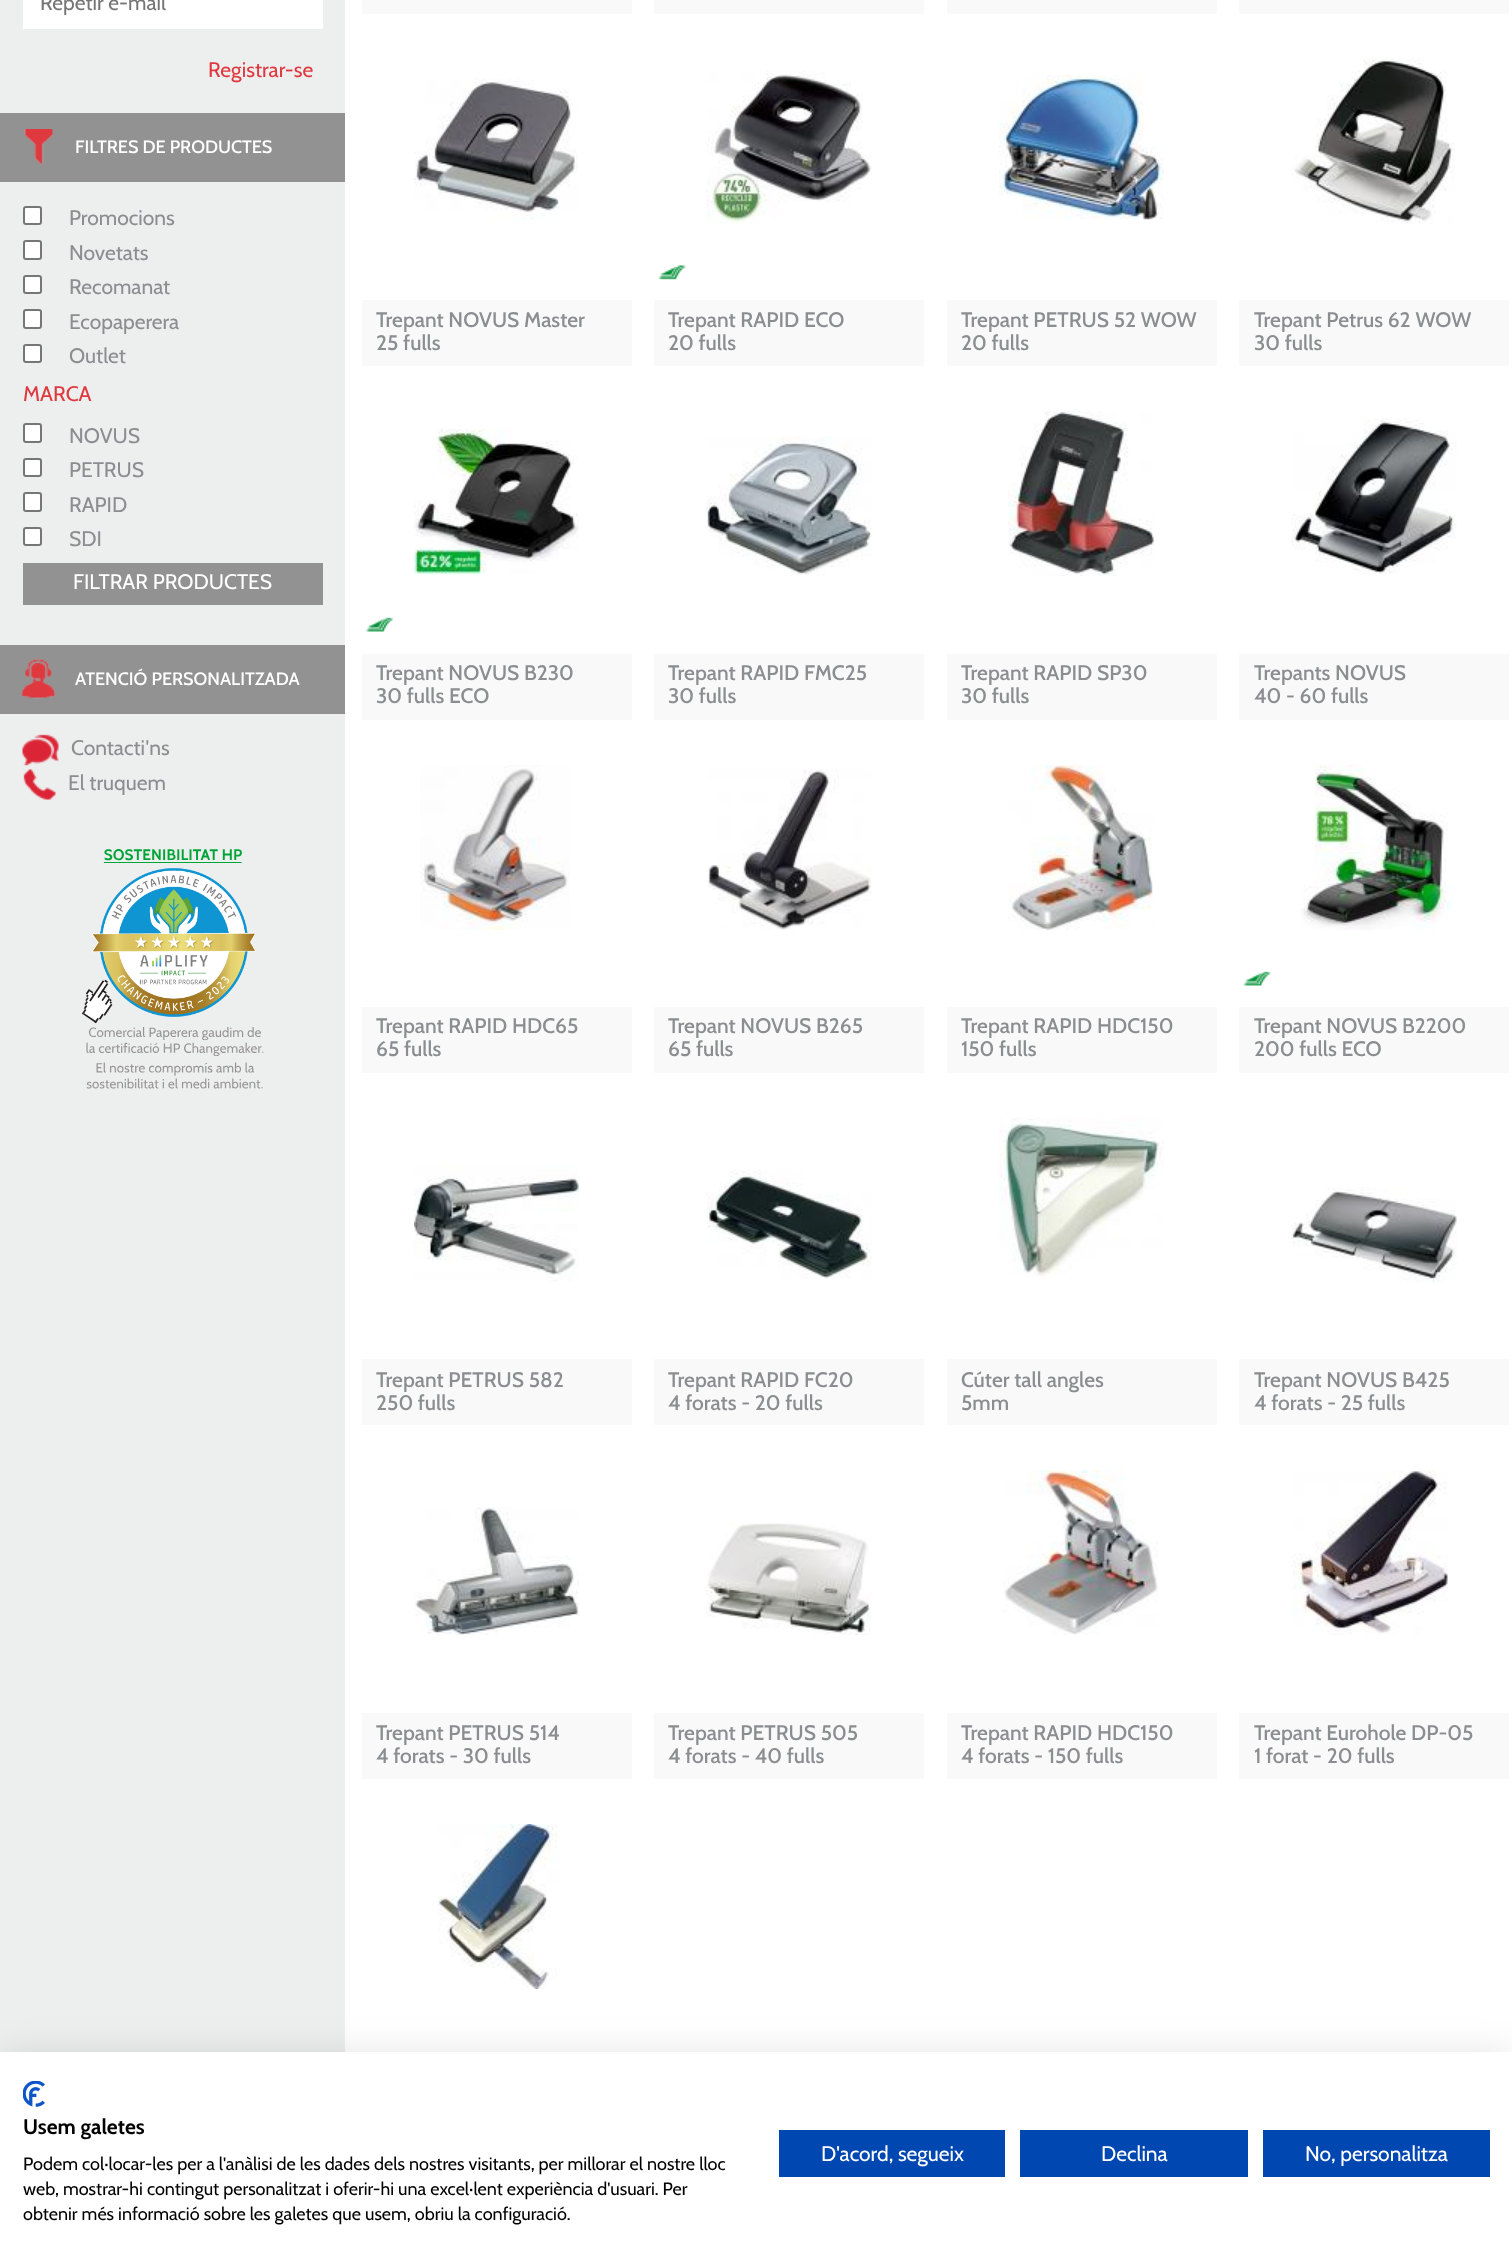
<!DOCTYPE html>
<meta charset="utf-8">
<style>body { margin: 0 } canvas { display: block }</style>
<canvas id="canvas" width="1512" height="2268"></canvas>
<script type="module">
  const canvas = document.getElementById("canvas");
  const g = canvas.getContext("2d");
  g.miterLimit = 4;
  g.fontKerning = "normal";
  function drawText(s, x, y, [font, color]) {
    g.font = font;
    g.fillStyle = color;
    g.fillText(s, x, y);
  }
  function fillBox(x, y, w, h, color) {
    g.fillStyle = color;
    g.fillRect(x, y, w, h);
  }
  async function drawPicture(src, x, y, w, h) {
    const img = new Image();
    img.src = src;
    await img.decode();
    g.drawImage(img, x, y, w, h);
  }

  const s1 = ["21px Cabin", "#757575"];
  const s2 = ["21px Cabin", "#DF393F"];
  const s3 = ["500 18px Cabin", "#FFFFFF"];
  const s4 = ["21px Cabin", "#8B8D91"];
  const s5 = ["21px Cabin", "#FFFFFF"];
  const s6 = ["500 21px Cabin", "#8B8D91"];
  const s7 = ["bold 21px Cabin", "#000000"];
  const s8 = ["18px Cabin", "#000000"];

  fillBox(0, 0, 1512, 2268, "#EDEEEE");
  fillBox(23, 0, 300, 29, "#FFFFFF");
  drawText("Repetir e-mail", 40, 10, s1);
  drawText("Registrar-se", 208, 77, s2);
  fillBox(0, 113, 345, 69, "#939292");
  await drawPicture("pic1.png", 24, 129, 29, 36);
  drawText("FILTRES DE PRODUCTES", 75, 153, s3);
  g.beginPath();
  g.roundRect(24, 207, 17, 17, 2);
  g.fill();
  g.strokeStyle = "#767676";
  g.lineWidth = 2;
  g.stroke();
  drawText("Promocions", 69, 225, s4);
  g.fillStyle = "#FFFFFF";
  g.beginPath();
  g.roundRect(24, 241, 17, 18, 2);
  g.fill();
  g.stroke();
  drawText("Novetats", 69, 260, s4);
  g.fillStyle = "#FFFFFF";
  g.beginPath();
  g.roundRect(24, 276, 17, 17, 2);
  g.fill();
  g.stroke();
  drawText("Recomanat", 69, 294, s4);
  g.fillStyle = "#FFFFFF";
  g.beginPath();
  g.roundRect(24, 310, 17, 18, 2);
  g.fill();
  g.stroke();
  drawText("Ecopaperera", 69, 329, s4);
  g.fillStyle = "#FFFFFF";
  g.beginPath();
  g.roundRect(24, 345, 17, 17, 2);
  g.fill();
  g.stroke();
  drawText("Outlet", 69, 363, s4);
  drawText("MARCA", 23, 401, s2);
  g.fillStyle = "#FFFFFF";
  g.beginPath();
  g.roundRect(24, 424, 17, 18, 2);
  g.fill();
  g.stroke();
  drawText("NOVUS", 69, 443, s4);
  g.fillStyle = "#FFFFFF";
  g.beginPath();
  g.roundRect(24, 459, 17, 17, 2);
  g.fill();
  g.stroke();
  drawText("PETRUS", 69, 477, s4);
  g.fillStyle = "#FFFFFF";
  g.beginPath();
  g.roundRect(24, 493, 17, 18, 2);
  g.fill();
  g.stroke();
  drawText("RAPID", 69, 512, s4);
  g.fillStyle = "#FFFFFF";
  g.beginPath();
  g.roundRect(24, 528, 17, 17, 2);
  g.fill();
  g.stroke();
  drawText("SDI", 69, 546, s4);
  fillBox(23, 563, 300, 42, "#939292");
  drawText("FILTRAR PRODUCTES", 73, 589, s5);
  fillBox(0, 645, 345, 69, "#939292");
  await drawPicture("pic2.png", 21, 658, 35, 41);
  drawText("ATENCIÓ PERSONALITZADA", 75, 685, s3);
  await drawPicture("pic3.png", 22, 734, 37, 32);
  drawText("Contacti'ns", 71, 755, s4);
  await drawPicture("pic4.png", 23, 769, 33, 31);
  drawText("El truquem", 68, 790, s4);
  await drawPicture("pic5.png", 81, 849, 183, 240);
  fillBox(345, 0, 1167, 2052, "#FFFFFF");
  fillBox(362, 0, 270, 14, "#F9F9F9");
  fillBox(654, 0, 270, 14, "#F9F9F9");
  fillBox(947, 0, 270, 14, "#F9F9F9");
  fillBox(1239, 0, 270, 14, "#F9F9F9");
  await drawPicture("pic6.png", 414, 78, 164, 143);
  fillBox(362, 300, 270, 66, "#F9F9F9");
  drawText("Trepant NOVUS Master", 376, 327, s6);
  drawText("25 fulls", 376, 350, s6);
  await drawPicture("pic7.png", 706, 70, 166, 154);
  await drawPicture("pic8.png", 658, 265, 28, 15);
  fillBox(654, 300, 270, 66, "#F9F9F9");
  drawText("Trepant RAPID ECO", 668, 327, s6);
  drawText("20 fulls", 668, 350, s6);
  await drawPicture("pic9.png", 999, 75, 165, 145);
  fillBox(947, 300, 270, 66, "#F9F9F9");
  drawText("Trepant PETRUS 52 WOW", 961, 327, s6);
  drawText("20 fulls", 961, 350, s6);
  await drawPicture("pic10.png", 1292, 58, 163, 166);
  fillBox(1239, 300, 270, 66, "#F9F9F9");
  drawText("Trepant Petrus 62 WOW", 1254, 327, s6);
  drawText("30 fulls", 1254, 350, s6);
  await drawPicture("pic11.png", 414, 429, 165, 146);
  await drawPicture("pic12.png", 365, 617, 29, 15);
  fillBox(362, 654, 270, 66, "#F9F9F9");
  drawText("Trepant NOVUS B230", 376, 680, s6);
  drawText("30 fulls ECO", 376, 703, s6);
  await drawPicture("pic13.png", 706, 436, 166, 140);
  fillBox(654, 654, 270, 66, "#F9F9F9");
  drawText("Trepant RAPID FMC25", 668, 680, s6);
  drawText("30 fulls", 668, 703, s6);
  await drawPicture("pic14.png", 1008, 411, 146, 165);
  fillBox(947, 654, 270, 66, "#F9F9F9");
  drawText("Trepant RAPID SP30", 961, 680, s6);
  drawText("30 fulls", 961, 703, s6);
  await drawPicture("pic15.png", 1291, 418, 166, 156);
  fillBox(1239, 654, 270, 66, "#F9F9F9");
  drawText("Trepants NOVUS", 1254, 680, s6);
  drawText("40 - 60 fulls", 1254, 703, s6);
  await drawPicture("pic16.png", 420, 765, 150, 165);
  fillBox(362, 1007, 270, 66, "#F9F9F9");
  drawText("Trepant RAPID HDC65", 376, 1033, s6);
  drawText("65 fulls", 376, 1056, s6);
  await drawPicture("pic17.png", 707, 769, 165, 161);
  fillBox(654, 1007, 270, 66, "#F9F9F9");
  drawText("Trepant NOVUS B265", 668, 1033, s6);
  drawText("65 fulls", 668, 1056, s6);
  await drawPicture("pic18.png", 1008, 765, 146, 165);
  fillBox(947, 1007, 270, 66, "#F9F9F9");
  drawText("Trepant RAPID HDC150", 961, 1033, s6);
  drawText("150 fulls", 961, 1056, s6);
  await drawPicture("pic19.png", 1300, 765, 152, 165);
  await drawPicture("pic20.png", 1243, 971, 28, 15);
  fillBox(1239, 1007, 270, 66, "#F9F9F9");
  drawText("Trepant NOVUS B2200", 1254, 1033, s6);
  drawText("200 fulls ECO", 1254, 1056, s6);
  await drawPicture("pic21.png", 414, 1164, 165, 118);
  fillBox(362, 1359, 270, 66, "#F9F9F9");
  drawText("Trepant PETRUS 582", 376, 1387, s6);
  drawText("250 fulls", 376, 1410, s6);
  await drawPicture("pic22.png", 706, 1170, 166, 109);
  fillBox(654, 1359, 270, 66, "#F9F9F9");
  drawText("Trepant RAPID FC20", 668, 1387, s6);
  drawText("4 forats - 20 fulls", 668, 1410, s6);
  await drawPicture("pic23.png", 999, 1117, 165, 160);
  fillBox(947, 1359, 270, 66, "#F9F9F9");
  drawText("Cúter tall angles", 961, 1387, s6);
  drawText("5mm", 961, 1410, s6);
  await drawPicture("pic24.png", 1291, 1187, 166, 96);
  fillBox(1239, 1359, 270, 66, "#F9F9F9");
  drawText("Trepant NOVUS B425", 1254, 1387, s6);
  drawText("4 forats - 25 fulls", 1254, 1410, s6);
  await drawPicture("pic25.png", 414, 1507, 165, 128);
  fillBox(362, 1713, 270, 66, "#F9F9F9");
  drawText("Trepant PETRUS 514", 376, 1740, s6);
  drawText("4 forats - 30 fulls", 376, 1763, s6);
  await drawPicture("pic26.png", 706, 1523, 166, 112);
  fillBox(654, 1713, 270, 66, "#F9F9F9");
  drawText("Trepant PETRUS 505", 668, 1740, s6);
  drawText("4 forats - 40 fulls", 668, 1763, s6);
  await drawPicture("pic27.png", 1003, 1470, 155, 165);
  fillBox(947, 1713, 270, 66, "#F9F9F9");
  drawText("Trepant RAPID HDC150", 961, 1740, s6);
  drawText("4 forats - 150 fulls", 961, 1763, s6);
  await drawPicture("pic28.png", 1291, 1470, 157, 165);
  fillBox(1239, 1713, 270, 66, "#F9F9F9");
  drawText("Trepant Eurohole DP-05", 1254, 1740, s6);
  drawText("1 forat - 20 fulls", 1254, 1763, s6);
  await drawPicture("pic29.png", 438, 1824, 121, 165);
  g.fillStyle = "rgba(0, 0, 0, 0.1)";
  g.filter = "blur(18px)";
  g.beginPath();
  g.rect(0, 2052, 1512, 216);
  g.fill();
  g.filter = "none";
  fillBox(0, 2052, 1512, 216, "#FFFFFF");
  await drawPicture("pic30.png", 23, 2081, 22, 26);
  drawText("Usem galetes", 23, 2134, s7);
  drawText("Podem col·locar-les per a l'anàlisi de les dades dels nostres visitants, per millorar el nostre lloc", 23, 2170, s8);
  drawText("web, mostrar-hi contingut personalitzat i oferir-hi una excel·lent experiència d'usuari. Per", 23, 2195, s8);
  drawText("obtenir més informació sobre les galetes que usem, obriu la configuració.", 23, 2220, s8);
  fillBox(779, 2130, 226, 47, "#0047B2");
  drawText("D'acord, segueix", 821, 2161, s5);
  fillBox(1020, 2130, 228, 47, "#0047B2");
  drawText("Declina", 1101, 2161, s5);
  fillBox(1263, 2130, 227, 47, "#0047B2");
  drawText("No, personalitza", 1305, 2161, s5);
</script>
